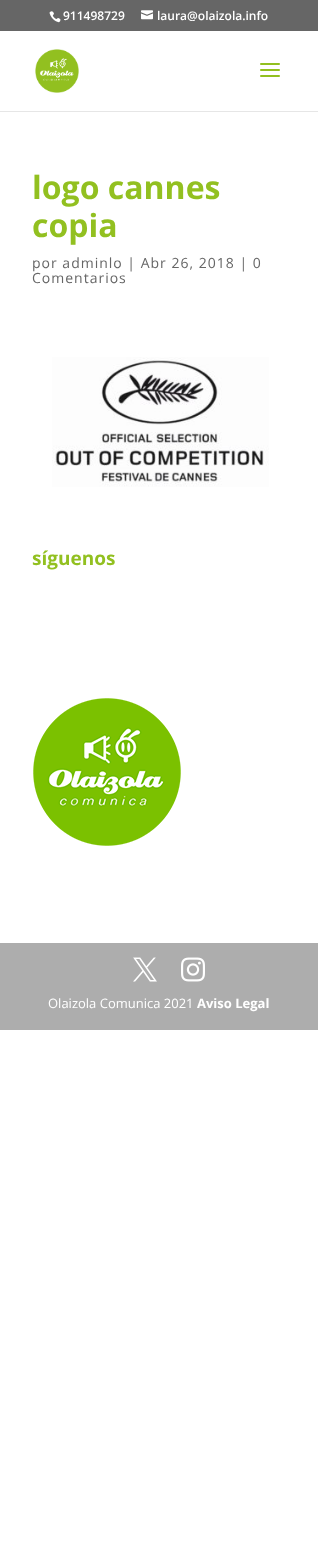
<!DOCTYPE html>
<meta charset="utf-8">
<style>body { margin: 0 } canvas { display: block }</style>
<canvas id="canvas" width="318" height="1552"></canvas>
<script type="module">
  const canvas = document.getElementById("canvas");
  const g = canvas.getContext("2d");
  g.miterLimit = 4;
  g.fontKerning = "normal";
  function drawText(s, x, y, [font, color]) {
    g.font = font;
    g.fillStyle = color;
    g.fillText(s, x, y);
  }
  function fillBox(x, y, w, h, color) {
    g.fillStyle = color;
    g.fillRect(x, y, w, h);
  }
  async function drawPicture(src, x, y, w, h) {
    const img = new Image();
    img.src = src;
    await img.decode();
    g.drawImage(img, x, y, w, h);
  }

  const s1 = ["600 12px Open Sans", "#FFFFFF"];
  const s2 = ["bold 32px Open Sans", "#92C020"];
  const s3 = ["14px Open Sans", "#666666"];
  const s4 = ["bold 19px Open Sans", "#92C020"];
  const s5 = ["13px Open Sans", "#FFFFFF"];
  const s6 = ["bold 13px Open Sans", "#FFFFFF"];

  fillBox(0, 0, 318, 1552, "#FFFFFF");
  fillBox(0, 0, 318, 31, "#666666");
  await drawPicture("pic1.png", 49, 11, 12, 12);
  drawText("911498729", 63, 20, s1);
  await drawPicture("pic2.png", 141, 10, 12, 10);
  drawText("laura@olaizola.info", 157, 20, s1);
  fillBox(0, 111, 318, 1, "#E6E6E6");
  await drawPicture("pic3.png", 35, 49, 44, 44);
  await drawPicture("pic4.png", 260, 63, 20, 14);
  drawText("logo cannes", 32, 199, s2);
  drawText("copia", 32, 237, s2);
  g.letterSpacing = "1px";
  drawText("por adminlo | Abr 26, 2018 | 0", 32, 268, s3);
  drawText("Comentarios", 32, 283, s3);
  await drawPicture("pic5.png", 52, 357, 217, 130);
  g.letterSpacing = "0px";
  drawText("síguenos", 32, 565, s4);
  await drawPicture("pic6.png", 33, 698, 148, 148);
  fillBox(0, 943, 318, 87, "#ADADAD");
  await drawPicture("pic7.png", 133, 957, 24, 25);
  await drawPicture("pic8.png", 181, 957, 24, 25);
  drawText("Olaizola Comunica 2021", 48, 1008, s5);
  drawText("Aviso Legal", 197, 1008, s6);
</script>
